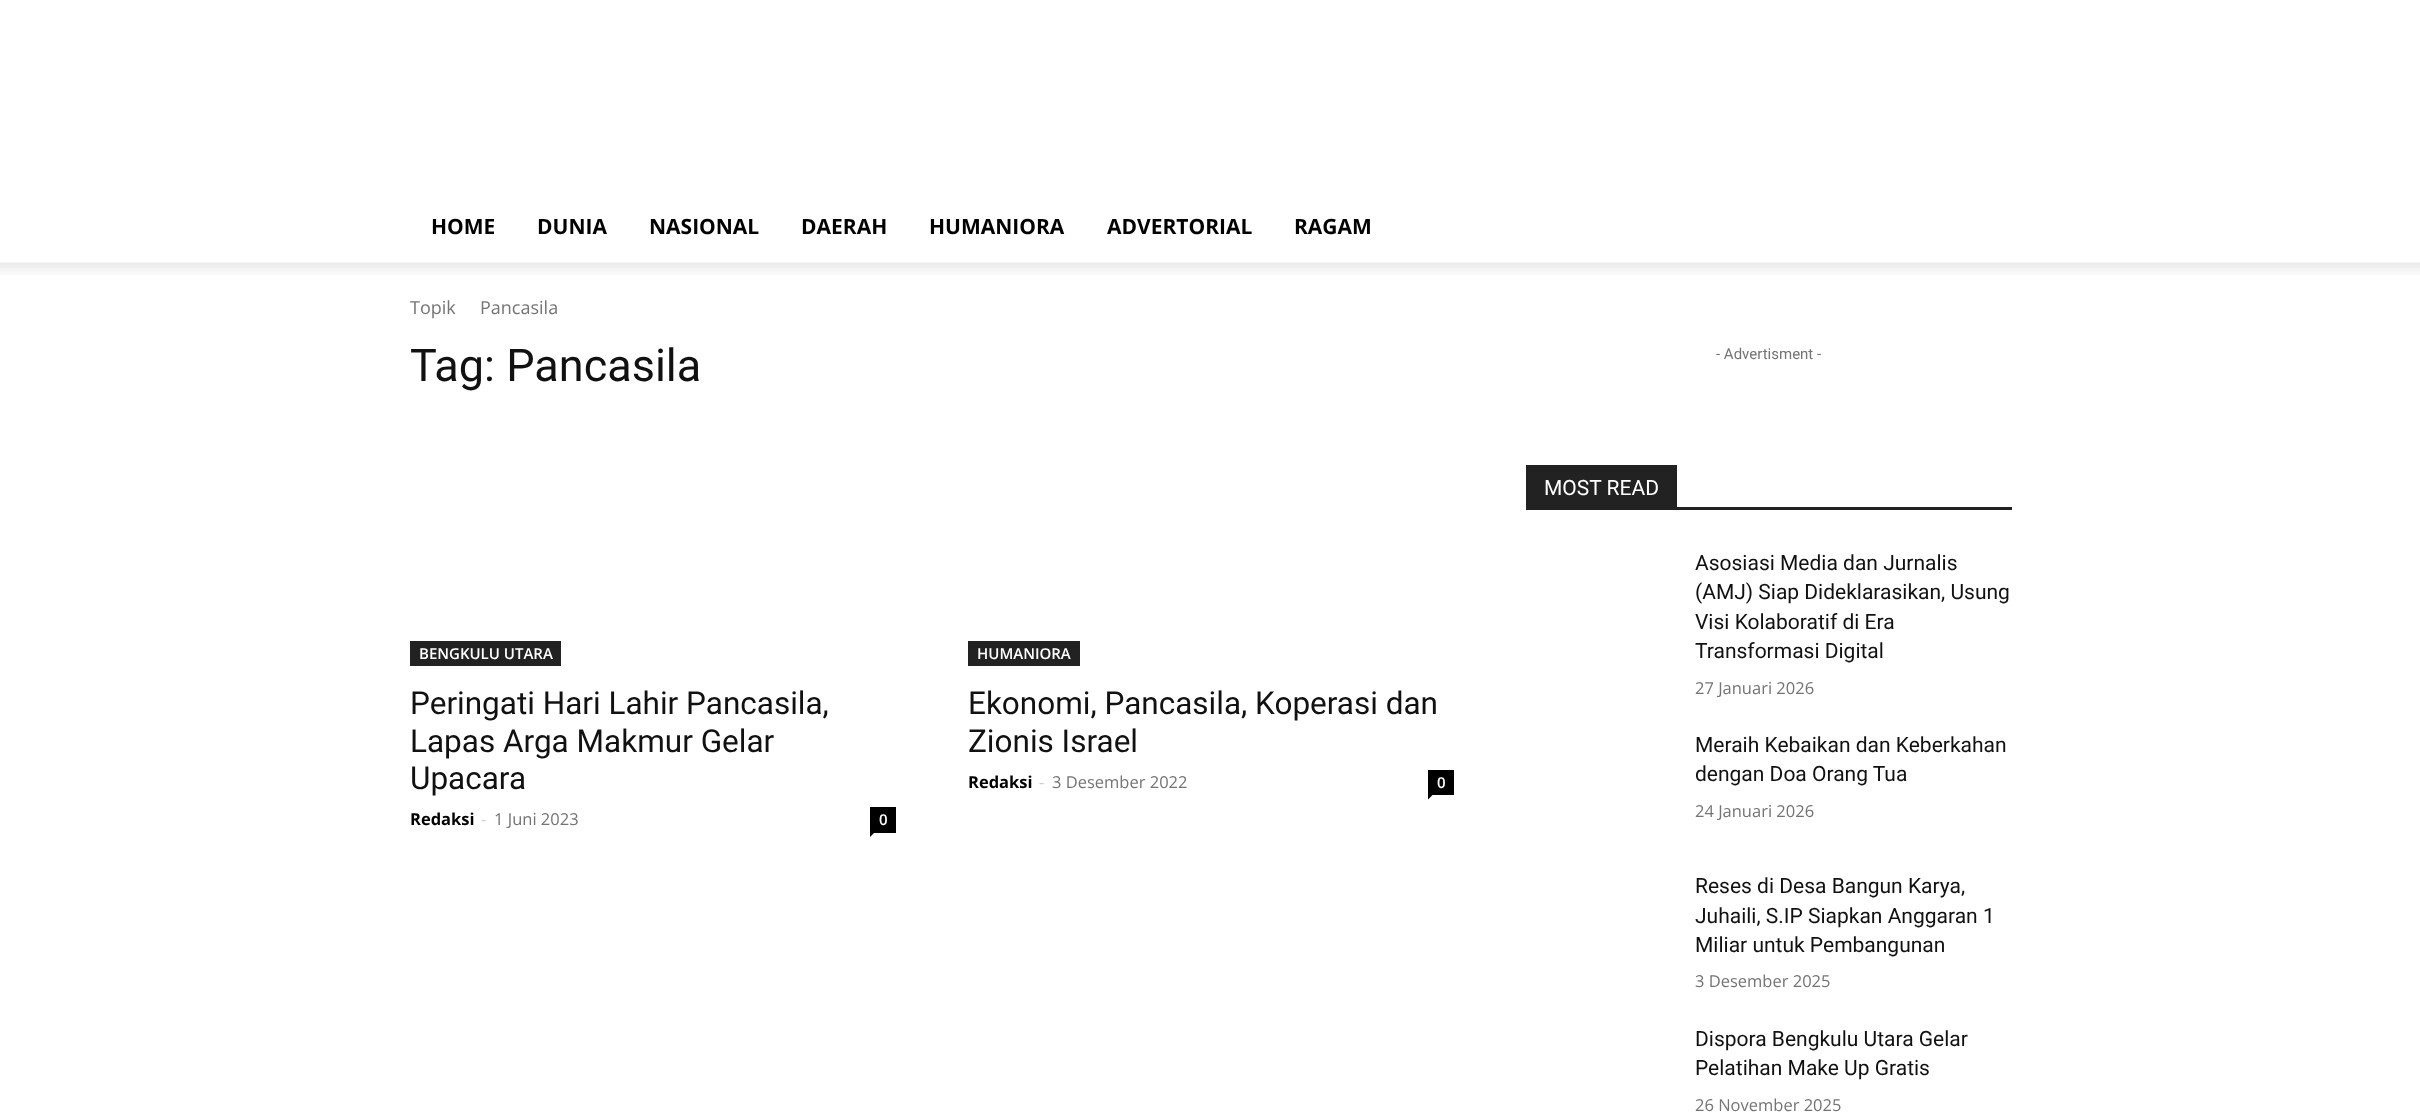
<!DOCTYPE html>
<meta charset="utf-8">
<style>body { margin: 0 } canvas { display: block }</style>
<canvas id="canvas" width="2420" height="1118"></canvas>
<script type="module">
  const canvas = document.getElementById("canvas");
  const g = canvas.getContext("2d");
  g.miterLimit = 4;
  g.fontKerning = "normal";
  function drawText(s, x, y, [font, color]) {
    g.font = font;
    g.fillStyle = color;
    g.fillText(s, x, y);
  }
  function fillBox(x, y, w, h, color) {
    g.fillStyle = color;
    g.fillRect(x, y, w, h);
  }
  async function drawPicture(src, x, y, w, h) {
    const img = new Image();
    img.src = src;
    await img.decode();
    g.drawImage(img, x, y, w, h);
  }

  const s1 = ["bold 21px Open Sans", "#000000"];
  const s2 = ["18px Open Sans", "#747474"];
  const s3 = ["45px Roboto", "#111111"];
  const s4 = ["600 15px Open Sans", "#FFFFFF"];
  const s5 = ["31.5px Roboto", "#111111"];
  const s6 = ["bold 16.5px Open Sans", "#000000"];
  const s7 = ["16.5px Open Sans", "#CCCCCC"];
  const s8 = ["16.5px Open Sans", "#747474"];
  const s9 = ["15px Roboto", "#747474"];
  const s10 = ["21px Roboto", "#FFFFFF"];
  const s11 = ["21px Roboto", "#111111"];

  fillBox(0, 0, 2420, 1118, "#FFFFFF");
  drawText("HOME", 431, 234, s1);
  drawText("DUNIA", 537, 234, s1);
  drawText("NASIONAL", 649, 234, s1);
  drawText("DAERAH", 801, 234, s1);
  drawText("HUMANIORA", 929, 234, s1);
  drawText("ADVERTORIAL", 1107, 234, s1);
  drawText("RAGAM", 1294, 234, s1);
  await drawPicture("pic1.png", 0, 262, 2420, 13);
  drawText("Topik", 410, 314, s2);
  drawText("Pancasila", 480, 314, s2);
  drawText("Tag: Pancasila", 410, 381, s3);
  fillBox(410, 641, 151, 25, "#222222");
  drawText("BENGKULU UTARA", 419, 659, s4);
  drawText("Peringati Hari Lahir Pancasila,", 410, 714, s5);
  drawText("Lapas Arga Makmur Gelar", 410, 752, s5);
  drawText("Upacara", 410, 789, s5);
  drawText("Redaksi", 410, 825, s6);
  drawText("-", 481, 825, s7);
  drawText("1 Juni 2023", 494, 825, s8);
  fillBox(870, 807, 26, 26, "#000000");
  drawText("0", 879, 825, s4);
  g.fillStyle = "#000000";
  g.beginPath();
  g.moveTo(870, 832.5);
  g.lineTo(874.5, 832.5);
  g.lineTo(870, 837);
  g.closePath();
  g.fill();
  fillBox(968, 641, 112, 25, "#222222");
  drawText("HUMANIORA", 977, 659, s4);
  drawText("Ekonomi, Pancasila, Koperasi dan", 968, 714, s5);
  drawText("Zionis Israel", 968, 752, s5);
  drawText("Redaksi", 968, 788, s6);
  drawText("-", 1039, 788, s7);
  drawText("3 Desember 2022", 1052, 788, s8);
  fillBox(1428, 770, 26, 25, "#000000");
  drawText("0", 1437, 788, s4);
  g.fillStyle = "#000000";
  g.beginPath();
  g.moveTo(1428, 795);
  g.lineTo(1432.5, 795);
  g.lineTo(1428, 799.5);
  g.closePath();
  g.fill();
  drawText("- Advertisment -", 1716, 359, s9);
  fillBox(1526, 507, 486, 3, "#222222");
  fillBox(1526, 465, 151, 42, "#222222");
  drawText("MOST READ", 1544, 495, s10);
  drawText("Asosiasi Media dan Jurnalis", 1695, 570, s11);
  drawText("(AMJ) Siap Dideklarasikan, Usung", 1695, 599, s11);
  drawText("Visi Kolaboratif di Era", 1695, 629, s11);
  drawText("Transformasi Digital", 1695, 658, s11);
  drawText("27 Januari 2026", 1695, 694, s8);
  drawText("Meraih Kebaikan dan Keberkahan", 1695, 752, s11);
  drawText("dengan Doa Orang Tua", 1695, 781, s11);
  drawText("24 Januari 2026", 1695, 817, s8);
  drawText("Reses di Desa Bangun Karya,", 1695, 893, s11);
  drawText("Juhaili, S.IP Siapkan Anggaran 1", 1695, 923, s11);
  drawText("Miliar untuk Pembangunan", 1695, 952, s11);
  drawText("3 Desember 2025", 1695, 987, s8);
  drawText("Dispora Bengkulu Utara Gelar", 1695, 1046, s11);
  drawText("Pelatihan Make Up Gratis", 1695, 1075, s11);
  drawText("26 November 2025", 1695, 1111, s8);
</script>
